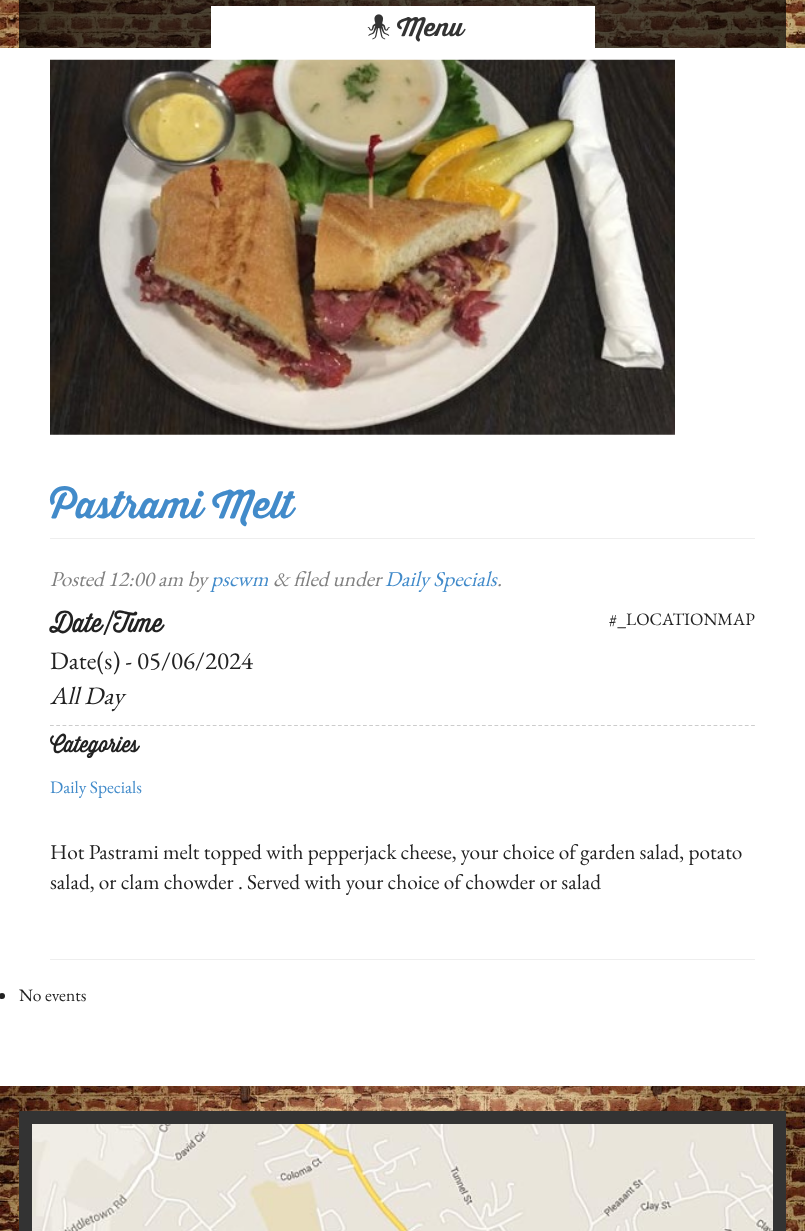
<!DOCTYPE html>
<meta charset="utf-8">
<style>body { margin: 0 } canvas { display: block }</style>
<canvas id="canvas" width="805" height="1231"></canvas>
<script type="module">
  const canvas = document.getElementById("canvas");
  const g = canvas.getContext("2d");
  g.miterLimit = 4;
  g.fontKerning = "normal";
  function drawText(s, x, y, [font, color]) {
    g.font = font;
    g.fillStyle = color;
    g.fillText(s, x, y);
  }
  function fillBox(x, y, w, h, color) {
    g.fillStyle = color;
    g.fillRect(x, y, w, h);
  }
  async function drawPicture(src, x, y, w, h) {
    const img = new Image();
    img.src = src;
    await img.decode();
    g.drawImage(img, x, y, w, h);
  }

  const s1 = ["bold 25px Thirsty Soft", "#333333"];
  const s2 = ["bold 37.5px Thirsty Soft", "#428BCA"];
  const s3 = ["italic 21.25px EB Garamond", "#808080"];
  const s4 = ["italic 21.25px EB Garamond", "#428BCA"];
  const s5 = ["bold 25px 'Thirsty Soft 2'", "#222222"];
  const s6 = ["25px EB Garamond", "#222222"];
  const s7 = ["italic 25px EB Garamond", "#222222"];
  const s8 = ["17.5px EB Garamond", "#222222"];
  const s9 = ["bold 21.25px 'Thirsty Soft 2'", "#222222"];
  const s10 = ["17.5px EB Garamond", "#428BCA"];
  const s11 = ["21.25px EB Garamond", "#222222"];

  fillBox(0, 0, 805, 1231, "#FFFFFF");
  await drawPicture("pic1.png", 0, 0, 805, 1231);
  fillBox(19, 0, 767, 48, "rgba(0, 0, 0, 0.7)");
  fillBox(211, 6, 384, 42, "#FFFFFF");
  await drawPicture("pic2.png", 367, 14, 23, 26);
  drawText("Menu", 397, 36, s1);
  fillBox(0, 48, 805, 1038, "#FFFFFF");
  fillBox(50, 959, 705, 1, "#EEEEEE");
  await drawPicture("pic3.png", 50, 59, 625, 376);
  fillBox(50, 538, 705, 1, "#EEEEEE");
  drawText("Pastrami Melt", 50, 518, s2);
  drawText("Posted 12:00 am by", 50, 586, s3);
  drawText("pscwm", 211, 586, s4);
  drawText("& filed under", 273, 586, s3);
  drawText("Daily Specials", 385, 586, s4);
  drawText(".", 497, 586, s3);
  g.beginPath();
  g.moveTo(50, 725.5);
  g.lineTo(755, 725.5);
  g.strokeStyle = "#CCCCCC";
  g.lineWidth = 1.2;
  g.setLineDash([3.75, 2.51]);
  g.stroke();
  drawText("Date/Time", 50, 632, s5);
  drawText("Date(s) - 05/06/2024", 50, 669, s6);
  drawText("All Day", 50, 704, s7);
  drawText("#_LOCATIONMAP", 609, 625, s8);
  drawText("Categories", 50, 752, s9);
  drawText("Daily Specials", 50, 793, s10);
  drawText("Hot Pastrami melt topped with pepperjack cheese, your choice of garden salad, potato", 50, 859, s11);
  drawText("salad, or clam chowder . Served with your choice of chowder or salad", 50, 889, s11);
  g.fillStyle = "#212121";
  g.beginPath();
  g.arc(2, 996, 3, 0, Math.PI * 2);
  g.fill();
  drawText("No events", 19, 1001, s8);
  await drawPicture("pic4.png", 32, 1124, 741, 107);
  g.strokeStyle = "#333333";
  g.lineWidth = 13;
  g.setLineDash([]);
  g.strokeRect(25.5, 1117.5, 754, 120);
</script>
